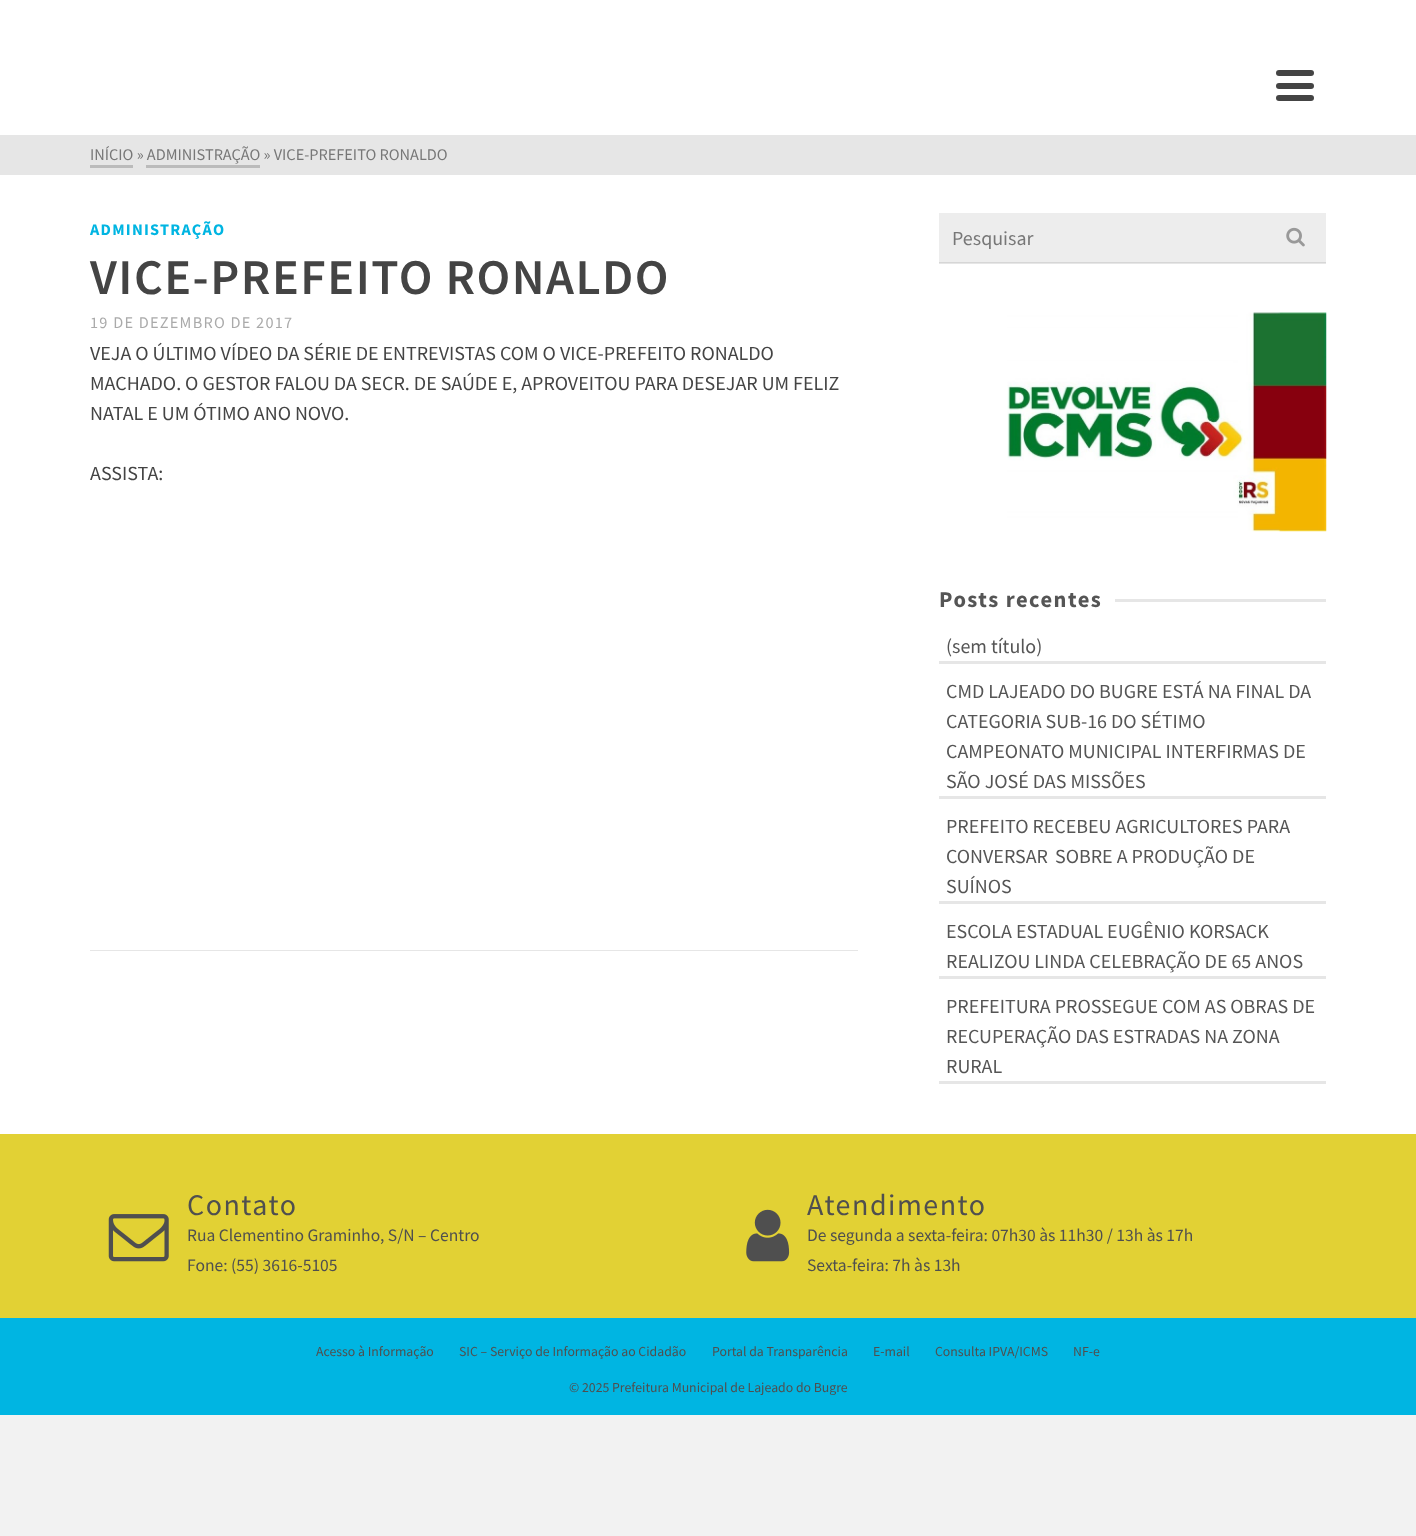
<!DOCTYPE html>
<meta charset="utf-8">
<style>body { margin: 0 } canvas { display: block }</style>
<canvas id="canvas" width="1416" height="1536"></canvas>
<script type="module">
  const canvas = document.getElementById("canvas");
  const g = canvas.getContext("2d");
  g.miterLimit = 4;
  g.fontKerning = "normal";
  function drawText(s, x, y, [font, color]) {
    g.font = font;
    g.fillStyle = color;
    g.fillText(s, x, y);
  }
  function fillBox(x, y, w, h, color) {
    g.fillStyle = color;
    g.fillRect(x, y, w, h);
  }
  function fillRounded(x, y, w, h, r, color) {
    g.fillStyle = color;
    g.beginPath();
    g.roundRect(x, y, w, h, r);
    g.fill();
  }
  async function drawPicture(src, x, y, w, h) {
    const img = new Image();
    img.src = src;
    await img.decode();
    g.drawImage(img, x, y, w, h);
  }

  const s1 = ["16.25px Source Sans Pro", "#777777"];
  const s2 = ["bold 16.25px Source Sans Pro", "#00B5E2"];
  const s3 = ["600 50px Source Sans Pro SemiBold", "#444444"];
  const s4 = ["16.25px Source Sans Pro", "#AAAAAA"];
  const s5 = ["20px Source Sans Pro", "#444444"];
  const s6 = ["20px Source Sans Pro", "#777777"];
  const s7 = ["bold 22.5px Source Sans Pro", "#555555"];
  const s8 = ["20px Source Sans Pro", "#555555"];
  const s9 = ["30px Source Sans Pro", "#4F4F4F"];
  const s10 = ["17.5px Source Sans Pro", "#4F4F4F"];
  const s11 = ["13.75px Source Sans Pro", "#4F4F4F"];

  fillBox(0, 0, 1416, 1536, "#F2F2F2");
  fillBox(0, 0, 1416, 135, "#FFFFFF");
  fillRounded(1276, 70, 38, 6, 3, "#444444");
  fillRounded(1276, 83, 38, 6, 3, "#444444");
  fillRounded(1276, 95, 38, 6, 3, "#444444");
  fillBox(0, 175, 1416, 959, "#FFFFFF");
  fillBox(939, 213, 387, 49, "#EDEDED");
  fillBox(0, 135, 1416, 40, "#E6E6E6");
  drawText("INÍCIO » ADMINISTRAÇÃO » VICE-PREFEITO RONALDO", 90, 160, s1);
  fillBox(90, 165, 43, 3, "#BBBBBB");
  fillBox(146, 165, 114, 3, "#BBBBBB");
  g.letterSpacing = "1.25px";
  drawText("ADMINISTRAÇÃO", 90, 235, s2);
  g.letterSpacing = "1.5px";
  drawText("VICE-PREFEITO RONALDO", 90, 294, s3);
  g.letterSpacing = "1.25px";
  drawText("19 DE DEZEMBRO DE 2017", 90, 328, s4);
  g.letterSpacing = "0px";
  drawText("VEJA O ÚLTIMO VÍDEO DA SÉRIE DE ENTREVISTAS COM O VICE-PREFEITO RONALDO", 90, 360, s5);
  drawText("MACHADO. O GESTOR FALOU DA SECR. DE SAÚDE E, APROVEITOU PARA DESEJAR UM FELIZ", 90, 390, s5);
  drawText("NATAL E UM ÓTIMO ANO NOVO.", 90, 420, s5);
  drawText("ASSISTA:", 90, 480, s5);
  fillBox(90, 950, 768, 1, "#E6E6E6");
  fillBox(939, 263, 387, 1, "#E6E6E6");
  fillBox(939, 262, 387, 1, "#D6D6D6");
  drawText("Pesquisar", 952, 245, s6);
  await drawPicture("pic1.png", 1286, 227, 19, 20);
  await drawPicture("pic2.png", 1007, 312, 320, 220);
  g.letterSpacing = "1.5px";
  drawText("Posts recentes", 939, 607, s7);
  fillBox(1115, 599, 211, 3, "#E6E6E6");
  fillBox(939, 661, 387, 3, "#E6E6E6");
  g.letterSpacing = "0px";
  drawText("(sem título)", 946, 653, s8);
  fillBox(939, 796, 387, 3, "#E6E6E6");
  drawText("CMD LAJEADO DO BUGRE ESTÁ NA FINAL DA", 946, 698, s8);
  drawText("CATEGORIA SUB-16 DO SÉTIMO", 946, 728, s8);
  drawText("CAMPEONATO MUNICIPAL INTERFIRMAS DE", 946, 758, s8);
  drawText("SÃO JOSÉ DAS MISSÕES", 946, 788, s8);
  fillBox(939, 901, 387, 3, "#E6E6E6");
  drawText("PREFEITO RECEBEU AGRICULTORES PARA", 946, 833, s8);
  drawText("CONVERSAR", 946, 863, s8);
  drawText("SOBRE A PRODUÇÃO DE", 1055, 863, s8);
  drawText("SUÍNOS", 946, 893, s8);
  fillBox(939, 976, 387, 3, "#E6E6E6");
  drawText("ESCOLA ESTADUAL EUGÊNIO KORSACK", 946, 938, s8);
  drawText("REALIZOU LINDA CELEBRAÇÃO DE 65 ANOS", 946, 968, s8);
  fillBox(939, 1081, 387, 3, "#E6E6E6");
  drawText("PREFEITURA PROSSEGUE COM AS OBRAS DE", 946, 1013, s8);
  drawText("RECUPERAÇÃO DAS ESTRADAS NA ZONA", 946, 1043, s8);
  drawText("RURAL", 946, 1073, s8);
  fillBox(0, 1134, 1416, 184, "#E2D134");
  await drawPicture("pic3.png", 108, 1214, 61, 48);
  g.letterSpacing = "1.5px";
  drawText("Contato", 187, 1215, s9);
  g.letterSpacing = "0px";
  drawText("Rua Clementino Graminho, S/N – Centro", 187, 1241, s10);
  drawText("Fone: (55) 3616-5105", 187, 1271, s10);
  await drawPicture("pic4.png", 746, 1209, 44, 53);
  g.letterSpacing = "1.5px";
  drawText("Atendimento", 807, 1215, s9);
  g.letterSpacing = "0px";
  drawText("De segunda a sexta-feira: 07h30 às 11h30 / 13h às 17h", 807, 1241, s10);
  drawText("Sexta-feira: 7h às 13h", 807, 1271, s10);
  fillBox(0, 1318, 1416, 97, "#00B5E2");
  drawText("Acesso à Informação", 316, 1356, s11);
  drawText("SIC – Serviço de Informação ao Cidadão", 459, 1356, s11);
  drawText("Portal da Transparência", 712, 1356, s11);
  drawText("E-mail", 873, 1356, s11);
  drawText("Consulta IPVA/ICMS", 935, 1356, s11);
  drawText("NF-e", 1073, 1356, s11);
  drawText("© 2025 Prefeitura Municipal de Lajeado do Bugre", 569, 1392, s11);
</script>
